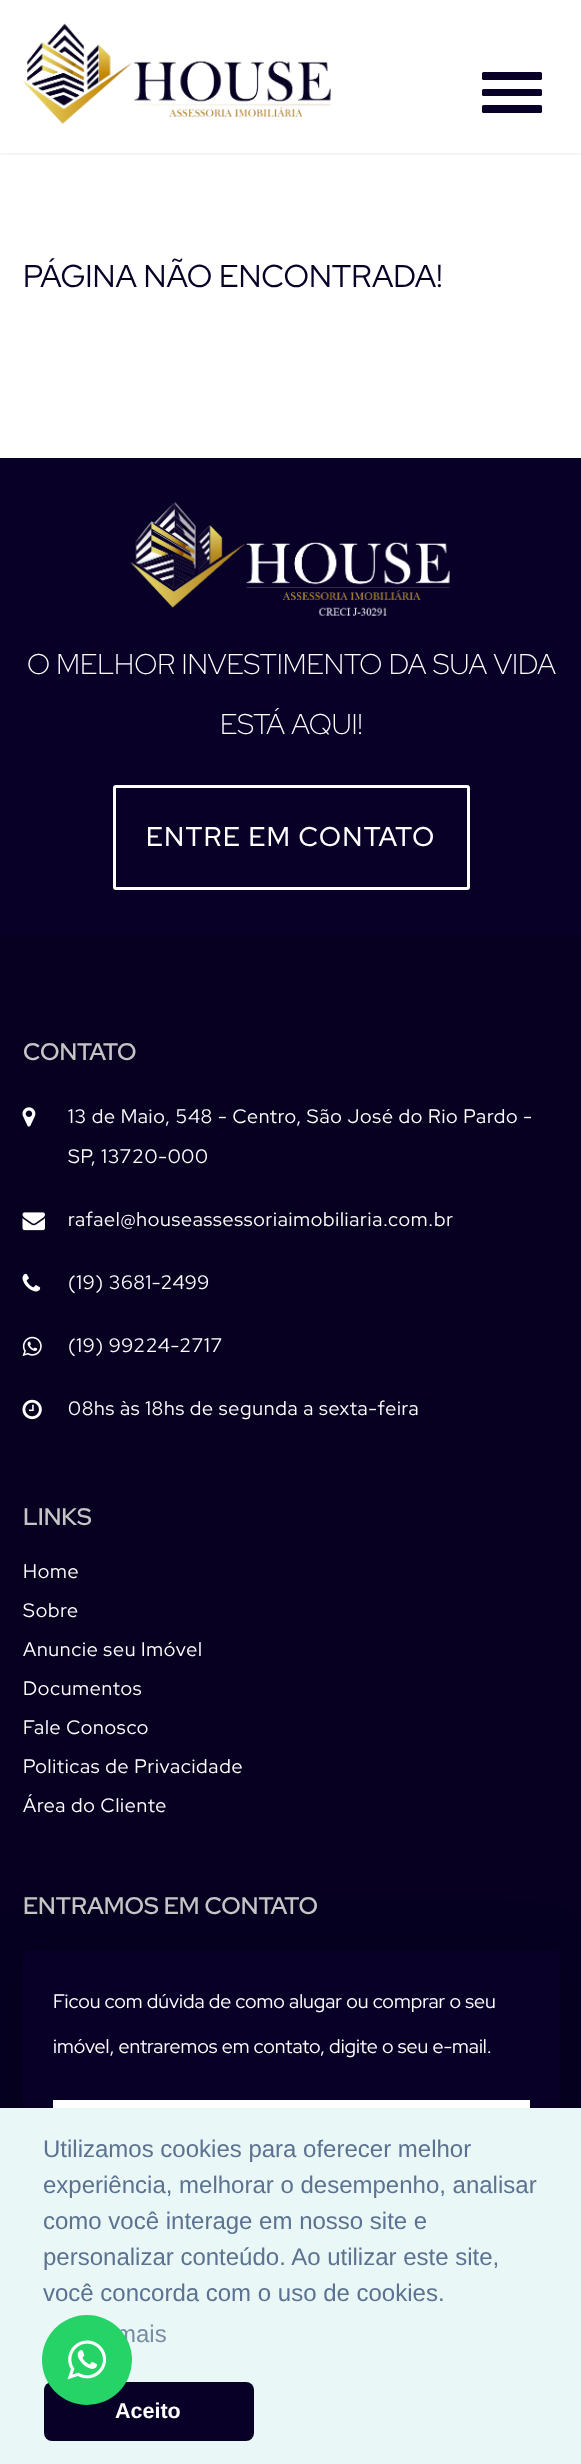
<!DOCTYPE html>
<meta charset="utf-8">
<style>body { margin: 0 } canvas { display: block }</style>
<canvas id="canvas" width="581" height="2464"></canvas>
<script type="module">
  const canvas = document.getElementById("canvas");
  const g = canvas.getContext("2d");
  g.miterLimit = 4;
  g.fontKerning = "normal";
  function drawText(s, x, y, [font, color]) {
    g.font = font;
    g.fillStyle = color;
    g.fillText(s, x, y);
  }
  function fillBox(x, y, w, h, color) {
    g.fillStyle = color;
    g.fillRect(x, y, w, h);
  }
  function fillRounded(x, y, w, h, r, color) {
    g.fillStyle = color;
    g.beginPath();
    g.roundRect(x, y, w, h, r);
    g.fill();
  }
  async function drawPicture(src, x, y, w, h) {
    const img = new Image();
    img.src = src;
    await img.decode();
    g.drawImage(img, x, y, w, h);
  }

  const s1 = ["31.5px Red Hat Display", "#080027"];
  const s2 = ["300 28.5px Red Hat Display", "#FFFFFF"];
  const s3 = ["500 27px Red Hat Display", "#FFFFFF"];
  const s4 = ["600 24px Red Hat Display", "#C5C5C5"];
  const s5 = ["19.5px Red Hat Display", "#FFFFFF"];
  const s6 = ["24px Liberation Sans", "#5C7291"];
  const s7 = ["24px Liberation Sans", "#788DA5"];
  const s8 = ["bold 21.5px Liberation Sans", "#FFFFFF"];

  fillBox(0, 0, 581, 2464, "#FFFFFF");
  g.save();
  g.beginPath();
  g.rect(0, 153, 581, 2);
  g.clip();
  g.fillStyle = "rgba(0, 0, 0, 0.05)";
  g.filter = "blur(1px)";
  g.beginPath();
  g.rect(0, 2, 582, 153);
  g.fill();
  g.filter = "none";
  g.restore();
  await drawPicture("pic1.png", 22, 23, 309, 101);
  fillRounded(482, 72, 60, 8, 1.5, "#080027");
  fillRounded(482, 89, 60, 7, 1.5, "#080027");
  fillRounded(482, 105, 60, 8, 1.5, "#080027");
  drawText("PÁGINA NÃO ENCONTRADA!", 23, 287, s1);
  fillBox(0, 458, 581, 477, "#080027");
  await drawPicture("pic2.png", 130, 502, 320, 114);
  drawText("O MELHOR INVESTIMENTO DA SUA VIDA", 27, 674, s2);
  drawText("ESTÁ AQUI!", 220, 734, s2);
  g.beginPath();
  g.roundRect(114.5, 786.5, 354, 102, 1.5);
  g.strokeStyle = "#FFFFFF";
  g.lineWidth = 3;
  g.stroke();
  g.letterSpacing = "1.5px";
  drawText("ENTRE EM CONTATO", 146, 846, s3);
  fillBox(0, 935, 581, 1173, "#070021");
  g.letterSpacing = "0px";
  drawText("CONTATO", 23, 1060, s4);
  await drawPicture("pic3.png", 22, 1107, 14, 20);
  g.letterSpacing = "0.75px";
  drawText("13 de Maio, 548 - Centro, São José do Rio Pardo -", 68, 1123, s5);
  drawText("SP, 13720-000", 68, 1163, s5);
  await drawPicture("pic4.png", 22, 1212, 23, 19);
  drawText("rafael@houseassessoriaimobiliaria.com.br", 68, 1226, s5);
  await drawPicture("pic5.png", 22, 1273, 19, 19);
  drawText("(19) 3681-2499", 68, 1289, s5);
  await drawPicture("pic6.png", 22, 1336, 20, 21);
  drawText("(19) 99224-2717", 68, 1352, s5);
  await drawPicture("pic7.png", 22, 1399, 20, 21);
  drawText("08hs às 18hs de segunda a sexta-feira", 68, 1415, s5);
  g.letterSpacing = "0px";
  drawText("LINKS", 23, 1525, s4);
  g.letterSpacing = "0.75px";
  drawText("Home", 23, 1578, s5);
  drawText("Sobre", 23, 1617, s5);
  drawText("Anuncie seu Imóvel", 23, 1656, s5);
  drawText("Documentos", 23, 1695, s5);
  drawText("Fale Conosco", 23, 1734, s5);
  drawText("Politicas de Privacidade", 23, 1773, s5);
  drawText("Área do Cliente", 23, 1812, s5);
  g.fillStyle = "rgba(0, 0, 0, 0.1)";
  g.filter = "blur(26px)";
  g.beginPath();
  g.roundRect(23, 1950, 537, 432, 3);
  g.fill();
  g.filter = "none";
  g.letterSpacing = "0px";
  drawText("ENTRAMOS EM CONTATO", 23, 1914, s4);
  fillRounded(23, 1950, 537, 432, 3, "#080027");
  drawText("Ficou com dúvida de como alugar ou comprar o seu", 53, 2008, s5);
  drawText("imóvel, entraremos em contato, digite o seu e-mail.", 53, 2053, s5);
  fillBox(53, 2100, 477, 8, "#FFFFFF");
  fillBox(0, 2108, 581, 356, "#EAF7F7");
  drawText("Utilizamos cookies para oferecer melhor", 43, 2157, s6);
  drawText("experiência, melhorar o desempenho, analisar", 43, 2193, s6);
  drawText("como você interage em nosso site e", 43, 2229, s6);
  drawText("personalizar conteúdo. Ao utilizar este site,", 43, 2265, s6);
  drawText("você concorda com o uso de cookies.", 43, 2301, s6);
  drawText("mais", 116, 2342, s7);
  fillRounded(44, 2382, 210, 59, 8, "#080027");
  drawText("Aceito", 115, 2418, s8);
  g.fillStyle = "#25D366";
  g.beginPath();
  g.arc(87, 2360, 45, 0, Math.PI * 2);
  g.fill();
  await drawPicture("pic8.png", 67, 2340, 40, 40);
</script>
